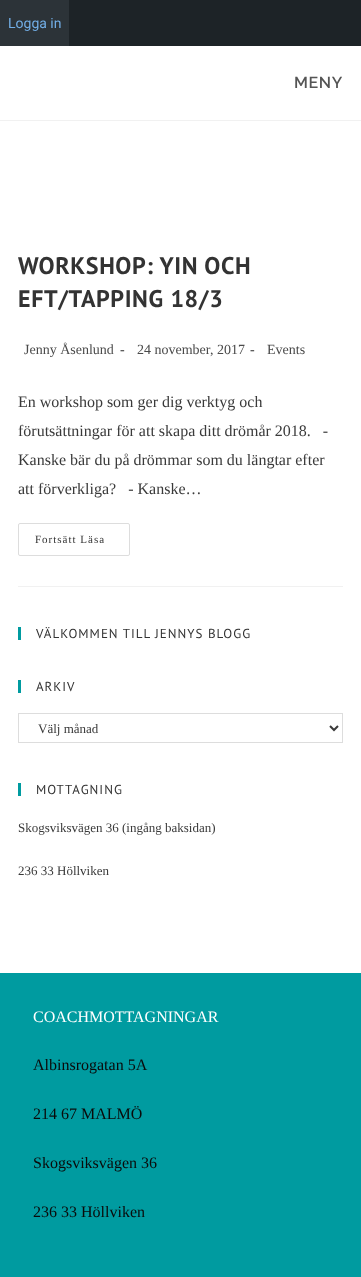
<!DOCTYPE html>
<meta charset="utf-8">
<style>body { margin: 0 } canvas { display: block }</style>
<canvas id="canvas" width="361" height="1277"></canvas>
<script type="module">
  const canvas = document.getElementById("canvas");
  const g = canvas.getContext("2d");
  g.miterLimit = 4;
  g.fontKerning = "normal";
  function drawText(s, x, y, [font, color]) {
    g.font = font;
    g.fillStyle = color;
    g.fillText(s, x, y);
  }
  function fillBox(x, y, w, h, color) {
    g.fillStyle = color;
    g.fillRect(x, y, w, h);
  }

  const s1 = ["14px Roboto", "#72AEE6"];
  const s2 = ["600 16px Raleway", "#555555"];
  const s3 = ["bold 24px PT Sans", "#333333"];
  const s4 = ["14px Liberation Serif", "#4A4A4A"];
  const s5 = ["bold 14px Liberation Serif", "#4A4A4A"];
  const s6 = ["16px Liberation Serif", "#3A3A3A"];
  const s7 = ["11px Liberation Serif", "#333333"];
  const s8 = ["13px PT Sans", "#333333"];
  const s9 = ["13px Liberation Serif", "#3A3A3A"];
  const s10 = ["16px Liberation Serif", "#FFFFFF"];
  const s11 = ["16px Liberation Serif", "#0A0A0A"];

  fillBox(0, 0, 361, 1277, "#FFFFFF");
  fillBox(69, 0, 292, 46, "#1D2327");
  fillBox(0, 0, 69, 46, "#2C3338");
  drawText("Logga in", 8, 28, s1);
  fillBox(0, 120, 361, 1, "#F1F1F1");
  g.letterSpacing = "0.6px";
  drawText("MENY", 294, 88, s2);
  fillBox(18, 586, 325, 1, "#F1F1F1");
  drawText("WORKSHOP: YIN OCH", 18, 274, s3);
  drawText("EFT/TAPPING 18/3", 18, 307, s3);
  g.letterSpacing = "0px";
  drawText("Jenny Åsenlund", 24, 354, s4);
  drawText("-", 120, 354, s5);
  drawText("24 november, 2017", 137, 354, s4);
  drawText("-", 250, 354, s5);
  drawText("Events", 267, 354, s4);
  drawText("En workshop som ger dig verktyg och", 18, 407, s6);
  drawText("förutsättningar för att skapa ditt drömår 2018.   -", 18, 436, s6);
  drawText("Kanske bär du på drömmar som du längtar efter", 18, 465, s6);
  drawText("att förverkliga?   - Kanske…", 18, 494, s6);
  g.beginPath();
  g.roundRect(18.5, 523.5, 111, 32, 1.5);
  g.strokeStyle = "#DDDDDD";
  g.stroke();
  g.letterSpacing = "1px";
  drawText("Fortsätt Läsa", 35, 543, s7);
  fillBox(18, 627, 3, 13, "#009BA0");
  drawText("VÄLKOMMEN TILL JENNYS BLOGG", 36, 638, s8);
  fillBox(18, 680, 3, 13, "#009BA0");
  drawText("ARKIV", 36, 691, s8);
  g.strokeRect(18.5, 713.5, 324, 29);
  g.beginPath();
  g.moveTo(330, 726);
  g.lineTo(334, 730);
  g.lineTo(338, 726);
  g.strokeStyle = "#3A3A3A";
  g.lineWidth = 2;
  g.stroke();
  g.letterSpacing = "0px";
  drawText("Välj månad", 38, 733, s9);
  fillBox(18, 783, 3, 13, "#009BA0");
  g.letterSpacing = "1px";
  drawText("MOTTAGNING", 36, 794, s8);
  g.letterSpacing = "0px";
  drawText("Skogsviksvägen 36 (ingång baksidan)", 18, 832, s9);
  drawText("236 33 Höllviken", 18, 875, s9);
  fillBox(0, 973, 361, 304, "#009BA0");
  drawText("COACHMOTTAGNINGAR", 33, 1022, s10);
  drawText("Albinsrogatan 5A", 33, 1070, s11);
  drawText("214 67 MALMÖ", 33, 1119, s11);
  drawText("Skogsviksvägen 36", 33, 1168, s11);
  drawText("236 33 Höllviken", 33, 1217, s11);
</script>
